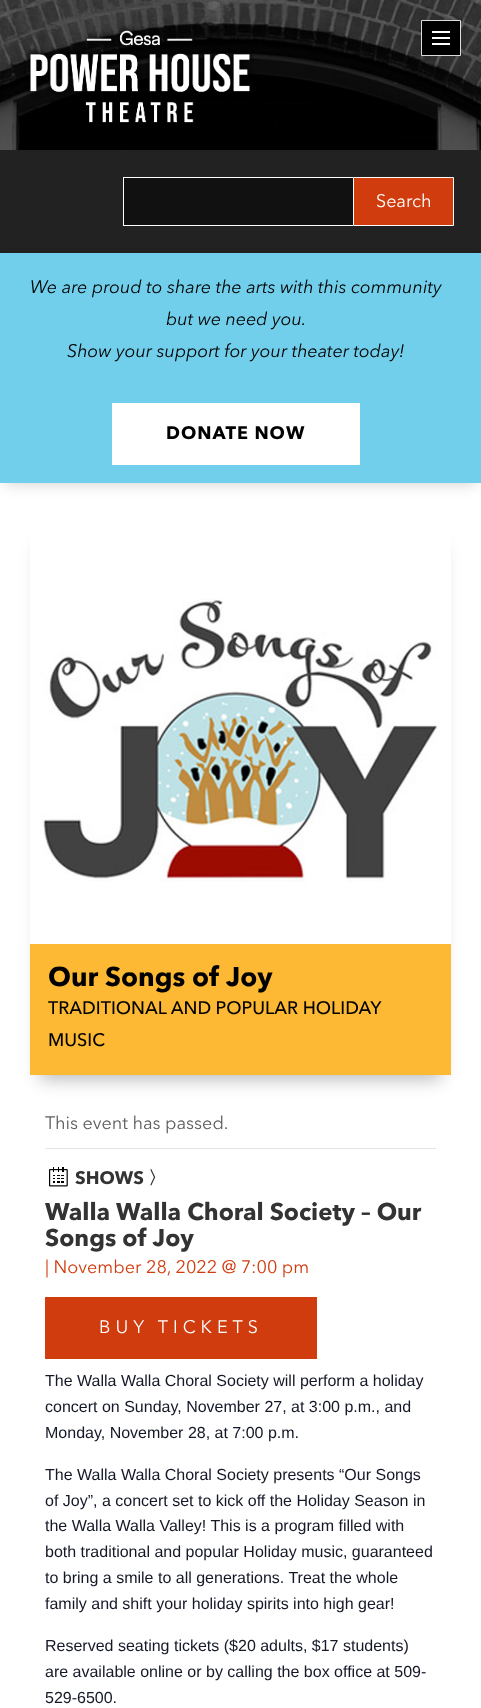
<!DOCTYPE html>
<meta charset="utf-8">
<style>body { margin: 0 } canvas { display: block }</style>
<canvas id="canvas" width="481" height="1708"></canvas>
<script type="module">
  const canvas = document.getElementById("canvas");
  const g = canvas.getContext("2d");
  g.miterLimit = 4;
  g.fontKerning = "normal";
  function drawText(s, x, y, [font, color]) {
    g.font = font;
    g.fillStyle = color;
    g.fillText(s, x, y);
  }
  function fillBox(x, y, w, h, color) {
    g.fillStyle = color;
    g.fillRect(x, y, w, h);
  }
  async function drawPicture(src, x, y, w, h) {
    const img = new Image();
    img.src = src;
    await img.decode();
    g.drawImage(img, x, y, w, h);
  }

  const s1 = ["18px Avenir Next", "#FFFFFF"];
  const s2 = ["italic 18px Avenir Next", "#000000"];
  const s3 = ["bold 18px Avenir Next", "#000000"];
  const s4 = ["bold 27px Avenir Next", "#000000"];
  const s5 = ["500 18px Avenir Next", "#000000"];
  const s6 = ["18px Avenir Next", "#5D5D5D"];
  const s7 = ["bold 18px Avenir Next", "#333333"];
  const s8 = ["bold 18px WenQuanYi Zen Hei", "#333333"];
  const s9 = ["bold 24px Avenir Next", "#333333"];
  const s10 = ["18px Avenir Next", "#D13C0E"];
  const s11 = ["16px Liberation Sans", "#141827"];

  fillBox(0, 0, 481, 1708, "#FFFFFF");
  await drawPicture("pic1.png", 0, 0, 481, 150);
  fillBox(0, 0, 481, 150, "rgba(0, 0, 0, 0.6)");
  await drawPicture("pic2.png", 24, 25, 230, 98);
  g.fillStyle = "#000000";
  g.beginPath();
  g.rect(421.5, 20.5, 39, 35);
  g.fill();
  g.strokeStyle = "#DDDDDD";
  g.stroke();
  fillBox(432, 31, 18, 2, "#FFFFFF");
  fillBox(432, 37, 18, 2, "#FFFFFF");
  fillBox(432, 43, 18, 2, "#FFFFFF");
  fillBox(0, 150, 481, 103, "#222222");
  fillBox(124, 178, 229, 47, "#111111");
  fillBox(123, 177, 230, 1, "#FFFFFF");
  fillBox(123, 225, 230, 1, "#FFFFFF");
  fillBox(123, 177, 1, 49, "#FFFFFF");
  g.fillStyle = "#D13C0E";
  g.beginPath();
  g.rect(353.5, 177.5, 100, 48);
  g.fill();
  g.strokeStyle = "#FFFFFF";
  g.stroke();
  drawText("Search", 376, 207, s1);
  g.fillStyle = "rgba(0, 0, 0, 0.2)";
  g.filter = "blur(7.5px)";
  g.beginPath();
  g.rect(5, 263, 471, 220);
  g.fill();
  g.filter = "none";
  fillBox(0, 253, 481, 230, "#71CFEB");
  drawText("We are proud to share the arts with this community", 30, 293, s2);
  drawText("but we need you.", 166, 325, s2);
  drawText("Show your support for your theater today!", 67, 357, s2);
  fillBox(112, 403, 248, 62, "#FFFFFF");
  g.letterSpacing = "1px";
  drawText("DONATE NOW", 166, 439, s3);
  g.fillStyle = "rgba(0, 0, 0, 0.28)";
  g.filter = "blur(9px)";
  g.beginPath();
  g.rect(40, 547, 401, 532);
  g.fill();
  g.filter = "none";
  fillBox(30, 944, 421, 131, "#FDB933");
  await drawPicture("pic3.png", 30, 523, 421, 421);
  g.letterSpacing = "0px";
  drawText("Our Songs of Joy", 48, 986, s4);
  drawText("TRADITIONAL AND POPULAR HOLIDAY", 48, 1014, s5);
  drawText("MUSIC", 48, 1046, s5);
  fillBox(45, 1148, 391, 1, "#E4E4E4");
  drawText("This event has passed.", 45, 1129, s6);
  await drawPicture("pic4.png", 49, 1167, 19, 20);
  drawText("SHOWS", 75, 1184, s7);
  drawText("〉", 148, 1184, s8);
  drawText("Walla Walla Choral Society – Our", 45, 1220, s9);
  drawText("Songs of Joy", 45, 1246, s9);
  drawText("| November 28, 2022 @ 7:00 pm", 45, 1273, s10);
  fillBox(45, 1297, 272, 62, "#D13C0E");
  g.letterSpacing = "5px";
  drawText("BUY TICKETS", 99, 1333, s1);
  g.letterSpacing = "0px";
  drawText("The Walla Walla Choral Society will perform a holiday", 45, 1386, s11);
  drawText("concert on Sunday, November 27, at 3:00 p.m., and", 45, 1412, s11);
  drawText("Monday, November 28, at 7:00 p.m.", 45, 1438, s11);
  drawText("The Walla Walla Choral Society presents “Our Songs", 45, 1480, s11);
  drawText("of Joy”, a concert set to kick off the Holiday Season in", 45, 1506, s11);
  drawText("the Walla Walla Valley! This is a program filled with", 45, 1531, s11);
  drawText("both traditional and popular Holiday music, guaranteed", 45, 1557, s11);
  drawText("to bring a smile to all generations. Treat the whole", 45, 1583, s11);
  drawText("family and shift your holiday spirits into high gear!", 45, 1609, s11);
  drawText("Reserved seating tickets ($20 adults, $17 students)", 45, 1651, s11);
  drawText("are available online or by calling the box office at 509-", 45, 1677, s11);
  drawText("529-6500.", 45, 1703, s11);
</script>
